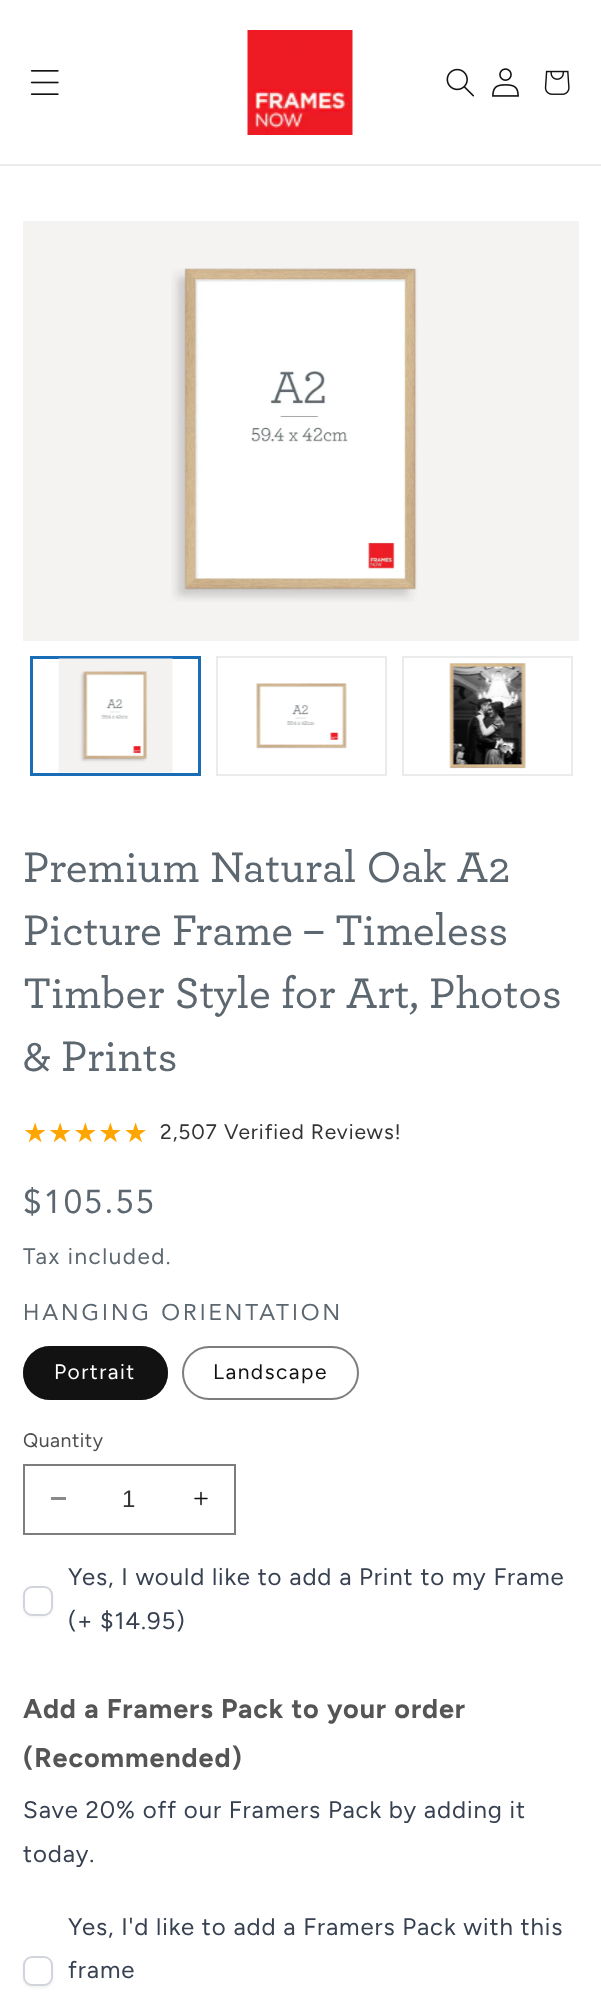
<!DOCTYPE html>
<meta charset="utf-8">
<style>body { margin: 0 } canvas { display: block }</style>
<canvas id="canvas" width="601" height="2004"></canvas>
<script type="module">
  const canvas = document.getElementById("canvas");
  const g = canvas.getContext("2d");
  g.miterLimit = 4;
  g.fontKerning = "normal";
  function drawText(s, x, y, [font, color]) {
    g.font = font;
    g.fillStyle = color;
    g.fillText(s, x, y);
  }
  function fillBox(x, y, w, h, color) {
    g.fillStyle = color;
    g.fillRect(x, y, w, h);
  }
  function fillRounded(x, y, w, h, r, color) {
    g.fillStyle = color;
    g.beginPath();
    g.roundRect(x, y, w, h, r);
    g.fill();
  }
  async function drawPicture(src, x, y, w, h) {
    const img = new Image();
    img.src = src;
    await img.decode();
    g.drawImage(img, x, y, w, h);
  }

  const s1 = ["500 45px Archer", "#5D6770"];
  const s2 = ["27px DejaVu Sans", "#FFA500"];
  const s3 = ["21px Figtree", "#333333"];
  const s4 = ["33px Avenir", "#5D6770"];
  const s5 = ["22.5px Figtree", "#5D6770"];
  const s6 = ["22.5px Avenir", "#5D6770"];
  const s7 = ["21px Figtree", "#FFFFFF"];
  const s8 = ["21px Figtree", "#121212"];
  const s9 = ["19.5px Figtree", "#4D4D4D"];
  const s10 = ["24px Liberation Sans", "#333333"];
  const s11 = ["24px Figtree", "#374151"];
  const s12 = ["bold 27px Figtree", "#555555"];

  fillBox(0, 0, 601, 2004, "#FFFFFF");
  fillBox(0, 164, 601, 2, "#ECECEC");
  await drawPicture("pic1.png", 30, 70, 29, 25);
  await drawPicture("pic2.png", 247, 30, 106, 105);
  await drawPicture("pic3.png", 446, 68, 28, 29);
  await drawPicture("pic4.png", 492, 68, 27, 29);
  await drawPicture("pic5.png", 544, 70, 26, 25);
  fillBox(23, 221, 556, 420, "#F5F3F1");
  await drawPicture("pic6.png", 171, 268, 247, 334);
  g.strokeStyle = "#196DB6";
  g.lineWidth = 3;
  g.strokeRect(31.5, 657.5, 168, 117);
  await drawPicture("pic7.png", 58, 658, 115, 115);
  g.strokeStyle = "#EBEBEB";
  g.lineWidth = 2;
  g.strokeRect(217, 657, 169, 118);
  await drawPicture("pic8.png", 256, 683, 91, 66);
  g.strokeRect(403, 657, 169, 118);
  await drawPicture("pic9.png", 449, 663, 77, 106);
  drawText("Premium Natural Oak A2", 23, 882, s1);
  drawText("Picture Frame – Timeless", 23, 945, s1);
  drawText("Timber Style for Art, Photos", 23, 1008, s1);
  drawText("& Prints", 23, 1071, s1);
  g.letterSpacing = "0.9px";
  drawText("★★★★★", 23, 1142, s2);
  drawText("2,507 Verified Reviews!", 160, 1139, s3);
  g.letterSpacing = "2px";
  drawText("$105.55", 23, 1213, s4);
  g.letterSpacing = "1.5px";
  drawText("Tax included.", 23, 1264, s5);
  g.letterSpacing = "3px";
  drawText("HANGING ORIENTATION", 23, 1320, s6);
  fillRounded(23, 1346, 145, 54, 27, "#121212");
  g.beginPath();
  g.roundRect(24, 1347, 143, 52, 26);
  g.strokeStyle = "rgba(18, 18, 18, 0.55)";
  g.stroke();
  g.letterSpacing = "1.5px";
  drawText("Portrait", 54, 1379, s7);
  g.beginPath();
  g.roundRect(183, 1347, 175, 52, 26);
  g.strokeStyle = "#7D7D7D";
  g.stroke();
  drawText("Landscape", 213, 1379, s8);
  g.letterSpacing = "0.5px";
  drawText("Quantity", 23, 1447, s9);
  fillBox(51, 1497, 15, 3, "#898989");
  await drawPicture("pic10.png", 194, 1491, 14, 15);
  g.strokeRect(24, 1465, 211, 69);
  g.letterSpacing = "0px";
  drawText("1", 122, 1507, s10);
  g.fillStyle = "rgba(0, 0, 0, 0.05)";
  g.filter = "blur(1.5px)";
  g.beginPath();
  g.roundRect(23, 1587, 30, 30, 9);
  g.fill();
  g.filter = "none";
  g.fillStyle = "#FFFFFF";
  g.beginPath();
  g.roundRect(24, 1587, 28, 28, 8);
  g.fill();
  g.strokeStyle = "#D1D5DB";
  g.stroke();
  g.letterSpacing = "0.9px";
  drawText("Yes, I would like to add a Print to my Frame", 68, 1585, s11);
  drawText("(+ $14.95)", 68, 1629, s11);
  drawText("Add a Framers Pack to your order", 23, 1718, s12);
  drawText("(Recommended)", 23, 1767, s12);
  drawText("Save 20% off our Framers Pack by adding it", 23, 1818, s11);
  drawText("today.", 23, 1862, s11);
  drawText("Yes, I'd like to add a Framers Pack with this", 68, 1935, s11);
  g.fillStyle = "rgba(0, 0, 0, 0.05)";
  g.filter = "blur(1.5px)";
  g.beginPath();
  g.roundRect(23, 1958, 30, 30, 9);
  g.fill();
  g.filter = "none";
  g.fillStyle = "#FFFFFF";
  g.beginPath();
  g.roundRect(24, 1957, 28, 28, 8);
  g.fill();
  g.stroke();
  drawText("frame", 68, 1978, s11);
</script>
